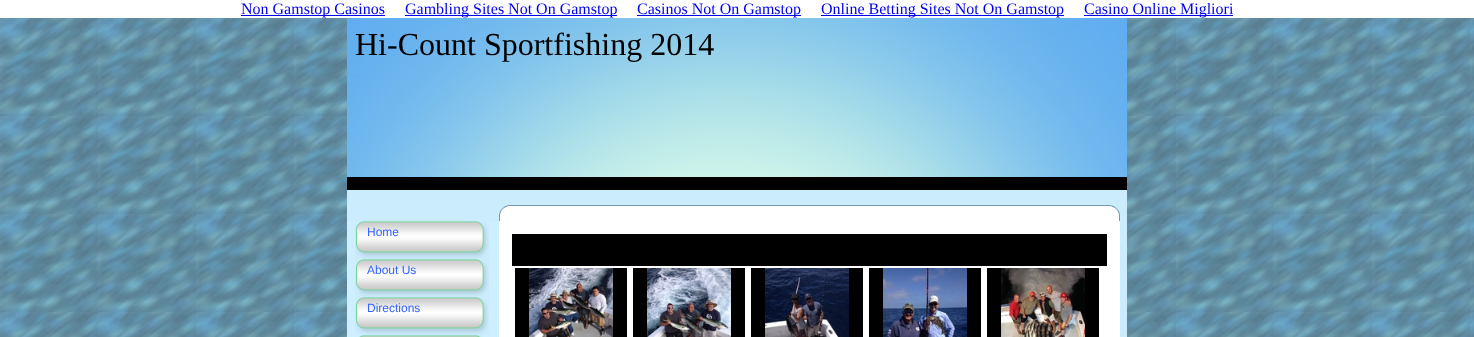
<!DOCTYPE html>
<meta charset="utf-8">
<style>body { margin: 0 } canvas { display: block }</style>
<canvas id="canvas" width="1474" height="337"></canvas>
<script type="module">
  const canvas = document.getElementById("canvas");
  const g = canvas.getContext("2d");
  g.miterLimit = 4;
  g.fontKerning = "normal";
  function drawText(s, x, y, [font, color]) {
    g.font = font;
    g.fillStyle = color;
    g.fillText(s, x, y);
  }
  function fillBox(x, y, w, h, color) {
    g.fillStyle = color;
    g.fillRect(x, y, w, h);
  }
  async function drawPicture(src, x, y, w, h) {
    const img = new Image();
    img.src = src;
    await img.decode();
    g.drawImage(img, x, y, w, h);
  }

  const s1 = ["16px Liberation Serif", "#0000EE"];
  const s2 = ["32px Liberation Serif", "#000000"];
  const s3 = ["12px Liberation Sans", "#3366FF"];

  fillBox(0, 0, 1474, 337, "#FFFFFF");
  fillBox(241, 15, 144, 1, "#0000EE");
  drawText("Non Gamstop Casinos", 241, 14, s1);
  fillBox(405, 15, 212, 1, "#0000EE");
  drawText("Gambling Sites Not On Gamstop", 405, 14, s1);
  fillBox(637, 15, 164, 1, "#0000EE");
  drawText("Casinos Not On Gamstop", 637, 14, s1);
  fillBox(821, 15, 243, 1, "#0000EE");
  drawText("Online Betting Sites Not On Gamstop", 821, 14, s1);
  fillBox(1084, 15, 149, 1, "#0000EE");
  drawText("Casino Online Migliori", 1084, 14, s1);
  await drawPicture("pic1.png", 0, 18, 1474, 319);
  await drawPicture("pic2.png", 347, 18, 780, 172);
  drawText("Hi-Count Sportfishing 2014", 355, 55, s2);
  await drawPicture("pic3.png", 347, 190, 780, 31);
  fillBox(1120, 221, 7, 116, "#CBECFD");
  fillBox(499, 221, 621, 116, "#FFFFFF");
  fillBox(347, 221, 152, 116, "#CEEFFF");
  await drawPicture("pic4.png", 355, 221, 134, 38);
  drawText("Home", 367, 236, s3);
  await drawPicture("pic4.png", 355, 259, 134, 38);
  drawText("About Us", 367, 274, s3);
  await drawPicture("pic4.png", 355, 297, 134, 38);
  drawText("Directions", 367, 312, s3);
  await drawPicture("pic5.png", 359, 335, 124, 2);
  fillBox(512, 234, 595, 32, "#000000");
  fillBox(515, 268, 112, 69, "#000000");
  await drawPicture("pic6.png", 529, 268, 84, 69);
  fillBox(633, 268, 112, 69, "#000000");
  await drawPicture("pic7.png", 647, 268, 84, 69);
  fillBox(751, 268, 112, 69, "#000000");
  await drawPicture("pic8.png", 765, 268, 84, 69);
  fillBox(869, 268, 112, 69, "#000000");
  await drawPicture("pic9.png", 883, 268, 84, 69);
  fillBox(987, 268, 112, 69, "#000000");
  await drawPicture("pic10.png", 1001, 268, 84, 69);
</script>
